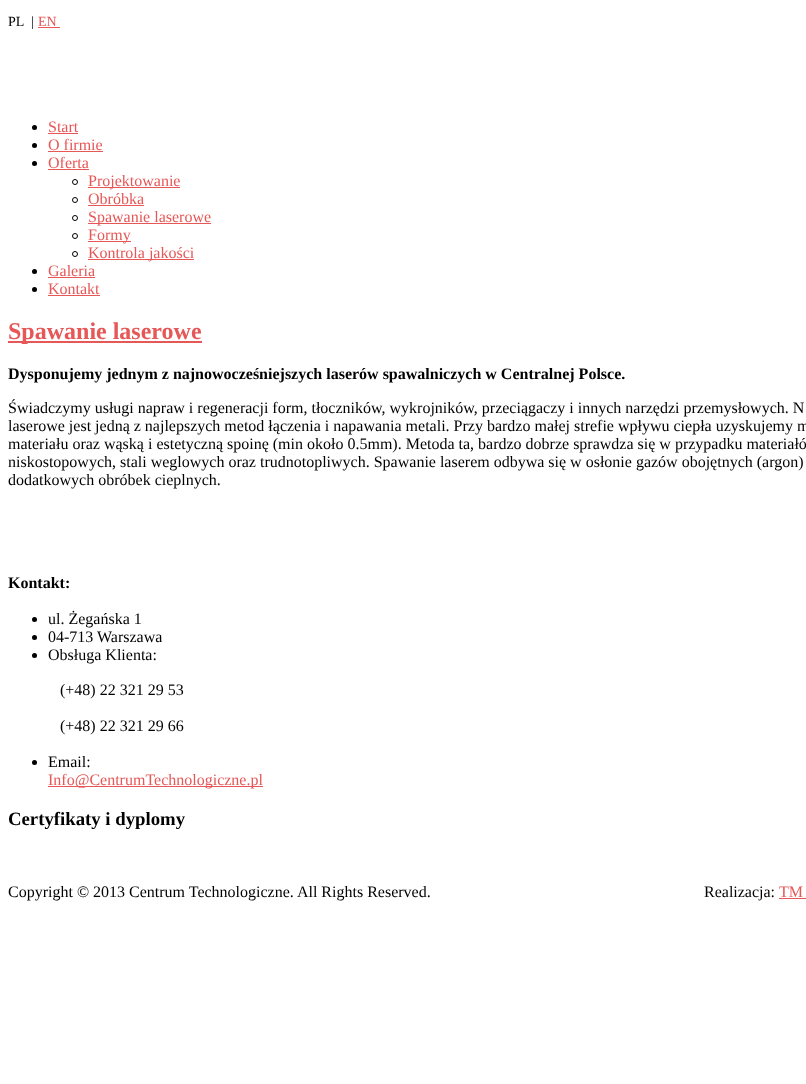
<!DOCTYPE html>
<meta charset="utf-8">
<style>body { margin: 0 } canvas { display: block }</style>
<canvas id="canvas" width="806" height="1084"></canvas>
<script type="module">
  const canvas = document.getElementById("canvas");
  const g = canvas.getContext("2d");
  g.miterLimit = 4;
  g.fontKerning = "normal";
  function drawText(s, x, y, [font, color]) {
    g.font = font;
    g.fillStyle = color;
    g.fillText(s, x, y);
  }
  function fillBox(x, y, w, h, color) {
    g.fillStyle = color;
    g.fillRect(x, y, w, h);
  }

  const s1 = ["14px Liberation Serif", "#000000"];
  const s2 = ["14px Liberation Serif", "#E65757"];
  const s3 = ["16px Liberation Serif", "#E65757"];
  const s4 = ["bold 24px Liberation Serif", "#E65757"];
  const s5 = ["bold 16px Liberation Serif", "#000000"];
  const s6 = ["16px Liberation Serif", "#000000"];
  const s7 = ["bold 18.75px Liberation Serif", "#000000"];

  fillBox(0, 0, 806, 1084, "#FFFFFF");
  drawText("PL", 8, 26, s1);
  drawText("|", 31, 26, s1);
  drawText("EN", 38, 26, s2);
  fillBox(38, 27, 22, 1, "#E65757");
  g.fillStyle = "#000000";
  g.beginPath();
  g.arc(34.5, 127.5, 2.5, 0, Math.PI * 2);
  g.fill();
  drawText("Start", 48, 132, s3);
  fillBox(48, 133, 30, 1, "#E65757");
  g.fillStyle = "#000000";
  g.beginPath();
  g.arc(34.5, 145.5, 2.5, 0, Math.PI * 2);
  g.fill();
  drawText("O firmie", 48, 150, s3);
  fillBox(48, 151, 55, 1, "#E65757");
  g.fillStyle = "#000000";
  g.beginPath();
  g.arc(34.5, 163.5, 2.5, 0, Math.PI * 2);
  g.fill();
  drawText("Oferta", 48, 168, s3);
  fillBox(48, 169, 41, 1, "#E65757");
  g.beginPath();
  g.arc(75, 182, 2.5, 0, Math.PI * 2);
  g.strokeStyle = "#000000";
  g.stroke();
  fillBox(88, 187, 92, 1, "#E65757");
  drawText("Projektowanie", 88, 186, s3);
  g.beginPath();
  g.arc(75, 200, 2.5, 0, Math.PI * 2);
  g.stroke();
  drawText("Obróbka", 88, 204, s3);
  fillBox(88, 205, 56, 1, "#E65757");
  g.beginPath();
  g.arc(75, 218, 2.5, 0, Math.PI * 2);
  g.stroke();
  fillBox(88, 223, 123, 1, "#E65757");
  drawText("Spawanie laserowe", 88, 222, s3);
  g.beginPath();
  g.arc(75, 236, 2.5, 0, Math.PI * 2);
  g.stroke();
  fillBox(88, 241, 43, 1, "#E65757");
  drawText("Formy", 88, 240, s3);
  g.beginPath();
  g.arc(75, 254, 2.5, 0, Math.PI * 2);
  g.stroke();
  fillBox(88, 259, 106, 1, "#E65757");
  drawText("Kontrola jakości", 88, 258, s3);
  g.fillStyle = "#000000";
  g.beginPath();
  g.arc(34.5, 271.5, 2.5, 0, Math.PI * 2);
  g.fill();
  drawText("Galeria", 48, 276, s3);
  fillBox(48, 277, 47, 1, "#E65757");
  g.fillStyle = "#000000";
  g.beginPath();
  g.arc(34.5, 289.5, 2.5, 0, Math.PI * 2);
  g.fill();
  drawText("Kontakt", 48, 294, s3);
  fillBox(48, 295, 52, 1, "#E65757");
  fillBox(8, 341, 194, 2, "#E65757");
  drawText("Spawanie laserowe", 8, 339, s4);
  drawText("Dysponujemy jednym z najnowocześniejszych laserów spawalniczych w Centralnej Polsce.", 8, 379, s5);
  drawText("Świadczymy usługi napraw i regeneracji form, tłoczników, wykrojników, przeciągaczy i innych narzędzi przemysłowych. N", 8, 413, s6);
  drawText("laserowe jest jedną z najlepszych metod łączenia i napawania metali. Przy bardzo małej strefie wpływu ciepła uzyskujemy m", 8, 431, s6);
  drawText("materiału oraz wąską i estetyczną spoinę (min około 0.5mm). Metoda ta, bardzo dobrze sprawdza się w przypadku materiałó", 8, 449, s6);
  drawText("niskostopowych, stali weglowych oraz trudnotopliwych. Spawanie laserem odbywa się w osłonie gazów obojętnych (argon)", 8, 467, s6);
  drawText("dodatkowych obróbek cieplnych.", 8, 485, s6);
  drawText("Kontakt:", 8, 588, s5);
  g.beginPath();
  g.arc(34.5, 619.5, 2.5, 0, Math.PI * 2);
  g.fill();
  drawText("ul. Żegańska 1", 48, 624, s6);
  g.beginPath();
  g.arc(34.5, 637.5, 2.5, 0, Math.PI * 2);
  g.fill();
  drawText("04-713 Warszawa", 48, 642, s6);
  g.beginPath();
  g.arc(34.5, 655.5, 2.5, 0, Math.PI * 2);
  g.fill();
  drawText("Obsługa Klienta:", 48, 660, s6);
  drawText("(+48) 22 321 29 53", 60, 695, s6);
  drawText("(+48) 22 321 29 66", 60, 731, s6);
  g.beginPath();
  g.arc(34.5, 762.5, 2.5, 0, Math.PI * 2);
  g.fill();
  drawText("Email:", 48, 767, s6);
  fillBox(48, 786, 215, 1, "#E65757");
  drawText("Info@CentrumTechnologiczne.pl", 48, 785, s3);
  drawText("Certyfikaty i dyplomy", 8, 825, s7);
  drawText("Copyright © 2013 Centrum Technologiczne. All Rights Reserved.", 8, 897, s6);
  drawText("Realizacja:", 704, 897, s6);
  drawText("TM", 779, 897, s3);
  fillBox(779, 898, 27, 1, "#E65757");
</script>
